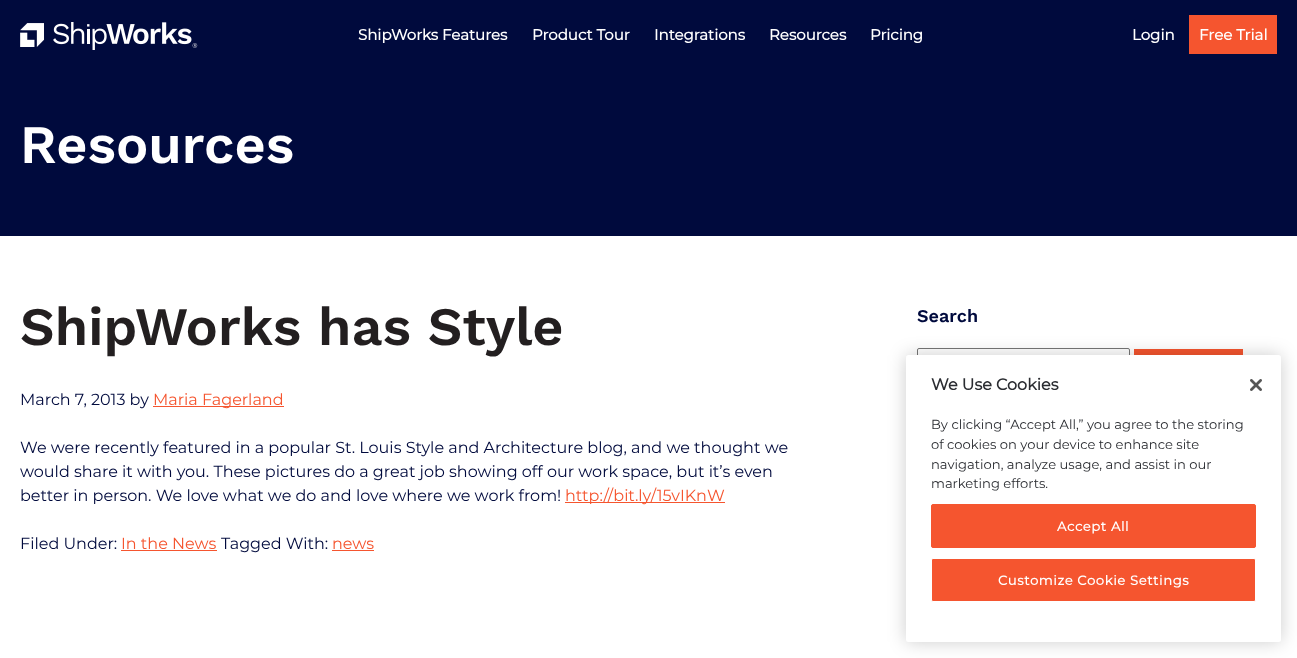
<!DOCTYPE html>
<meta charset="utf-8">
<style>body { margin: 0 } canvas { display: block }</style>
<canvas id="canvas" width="1297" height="658"></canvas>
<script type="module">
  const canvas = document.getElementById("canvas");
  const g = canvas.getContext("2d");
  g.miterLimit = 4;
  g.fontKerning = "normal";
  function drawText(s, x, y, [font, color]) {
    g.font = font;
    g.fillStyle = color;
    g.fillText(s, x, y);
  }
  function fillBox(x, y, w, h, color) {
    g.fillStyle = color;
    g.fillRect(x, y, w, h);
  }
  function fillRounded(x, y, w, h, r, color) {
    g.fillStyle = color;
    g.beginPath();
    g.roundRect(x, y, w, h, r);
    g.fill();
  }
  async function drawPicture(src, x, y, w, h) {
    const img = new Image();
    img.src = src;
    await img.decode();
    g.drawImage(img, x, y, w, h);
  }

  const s1 = ["bold 15px Montserrat", "#FFFFFF"];
  const s2 = ["600 54px Work Sans", "#FFFFFF"];
  const s3 = ["600 54px Work Sans", "#231F20"];
  const s4 = ["100 16px Montserrat", "#000A3D"];
  const s5 = ["100 16px Montserrat", "#F5552F"];
  const s6 = ["600 18px Work Sans", "#000A3D"];
  const s7 = ["bold 16px Montserrat", "#2A2C31"];
  const s8 = ["100 13.1px Montserrat", "#2A2C31"];
  const s9 = ["bold 13.1px Montserrat", "#FFFFFF"];

  fillBox(0, 0, 1297, 658, "#FFFFFF");
  fillBox(0, 0, 1297, 236, "#000A3D");
  await drawPicture("pic1.png", 20, 22, 178, 28);
  drawText("ShipWorks Features", 358, 40, s1);
  drawText("Product Tour", 532, 40, s1);
  drawText("Integrations", 654, 40, s1);
  drawText("Resources", 769, 40, s1);
  drawText("Pricing", 870, 40, s1);
  drawText("Login", 1132, 40, s1);
  fillBox(1189, 15, 88, 39, "#F5552F");
  drawText("Free Trial", 1199, 40, s1);
  drawText("Resources", 20, 163, s2);
  drawText("ShipWorks has Style", 20, 345, s3);
  drawText("March 7, 2013 by", 20, 405, s4);
  fillBox(153, 406, 131, 1, "#F5552F");
  drawText("Maria Fagerland", 153, 405, s5);
  drawText("We were recently featured in a popular St. Louis Style and Architecture blog, and we thought we", 20, 453, s4);
  drawText("would share it with you. These pictures do a great job showing off our work space, but it’s even", 20, 477, s4);
  drawText("better in person. We love what we do and love where we work from!", 20, 501, s4);
  fillBox(565, 502, 160, 1, "#F5552F");
  drawText("http://bit.ly/15vIKnW", 565, 501, s5);
  drawText("Filed Under:", 20, 549, s4);
  drawText("In the News", 121, 549, s5);
  fillBox(121, 550, 96, 1, "#F5552F");
  drawText("Tagged With:", 221, 549, s4);
  drawText("news", 332, 549, s5);
  fillBox(332, 550, 42, 1, "#F5552F");
  drawText("Search", 917, 322, s6);
  g.beginPath();
  g.roundRect(917.5, 348.5, 212, 47, 1.5);
  g.strokeStyle = "#767676";
  g.stroke();
  fillBox(1134, 349, 109, 6, "#F5552F");
  g.fillStyle = "rgba(0, 0, 0, 0.2)";
  g.filter = "blur(9px)";
  g.beginPath();
  g.roundRect(906, 355, 375, 287, 2.5);
  g.fill();
  g.filter = "none";
  fillRounded(906, 355, 375, 287, 2.5, "#FFFFFF");
  drawText("We Use Cookies", 931, 390, s7);
  drawText("By clicking “Accept All,” you agree to the storing", 931, 429, s8);
  drawText("of cookies on your device to enhance site", 931, 449, s8);
  drawText("navigation, analyze usage, and assist in our", 931, 469, s8);
  drawText("marketing efforts.", 931, 488, s8);
  await drawPicture("pic2.png", 1250, 379, 12, 12);
  g.fillStyle = "#F5552F";
  g.beginPath();
  g.roundRect(931.5, 504.5, 324, 43, 1.5);
  g.fill();
  g.strokeStyle = "#F5552F";
  g.stroke();
  g.letterSpacing = "0.65px";
  drawText("Accept All", 1057, 531, s9);
  g.fillStyle = "#F5552F";
  g.beginPath();
  g.roundRect(931.5, 558.5, 324, 43, 1.5);
  g.fill();
  g.strokeStyle = "#FFFFFF";
  g.stroke();
  drawText("Customize Cookie Settings", 998, 585, s9);
</script>
